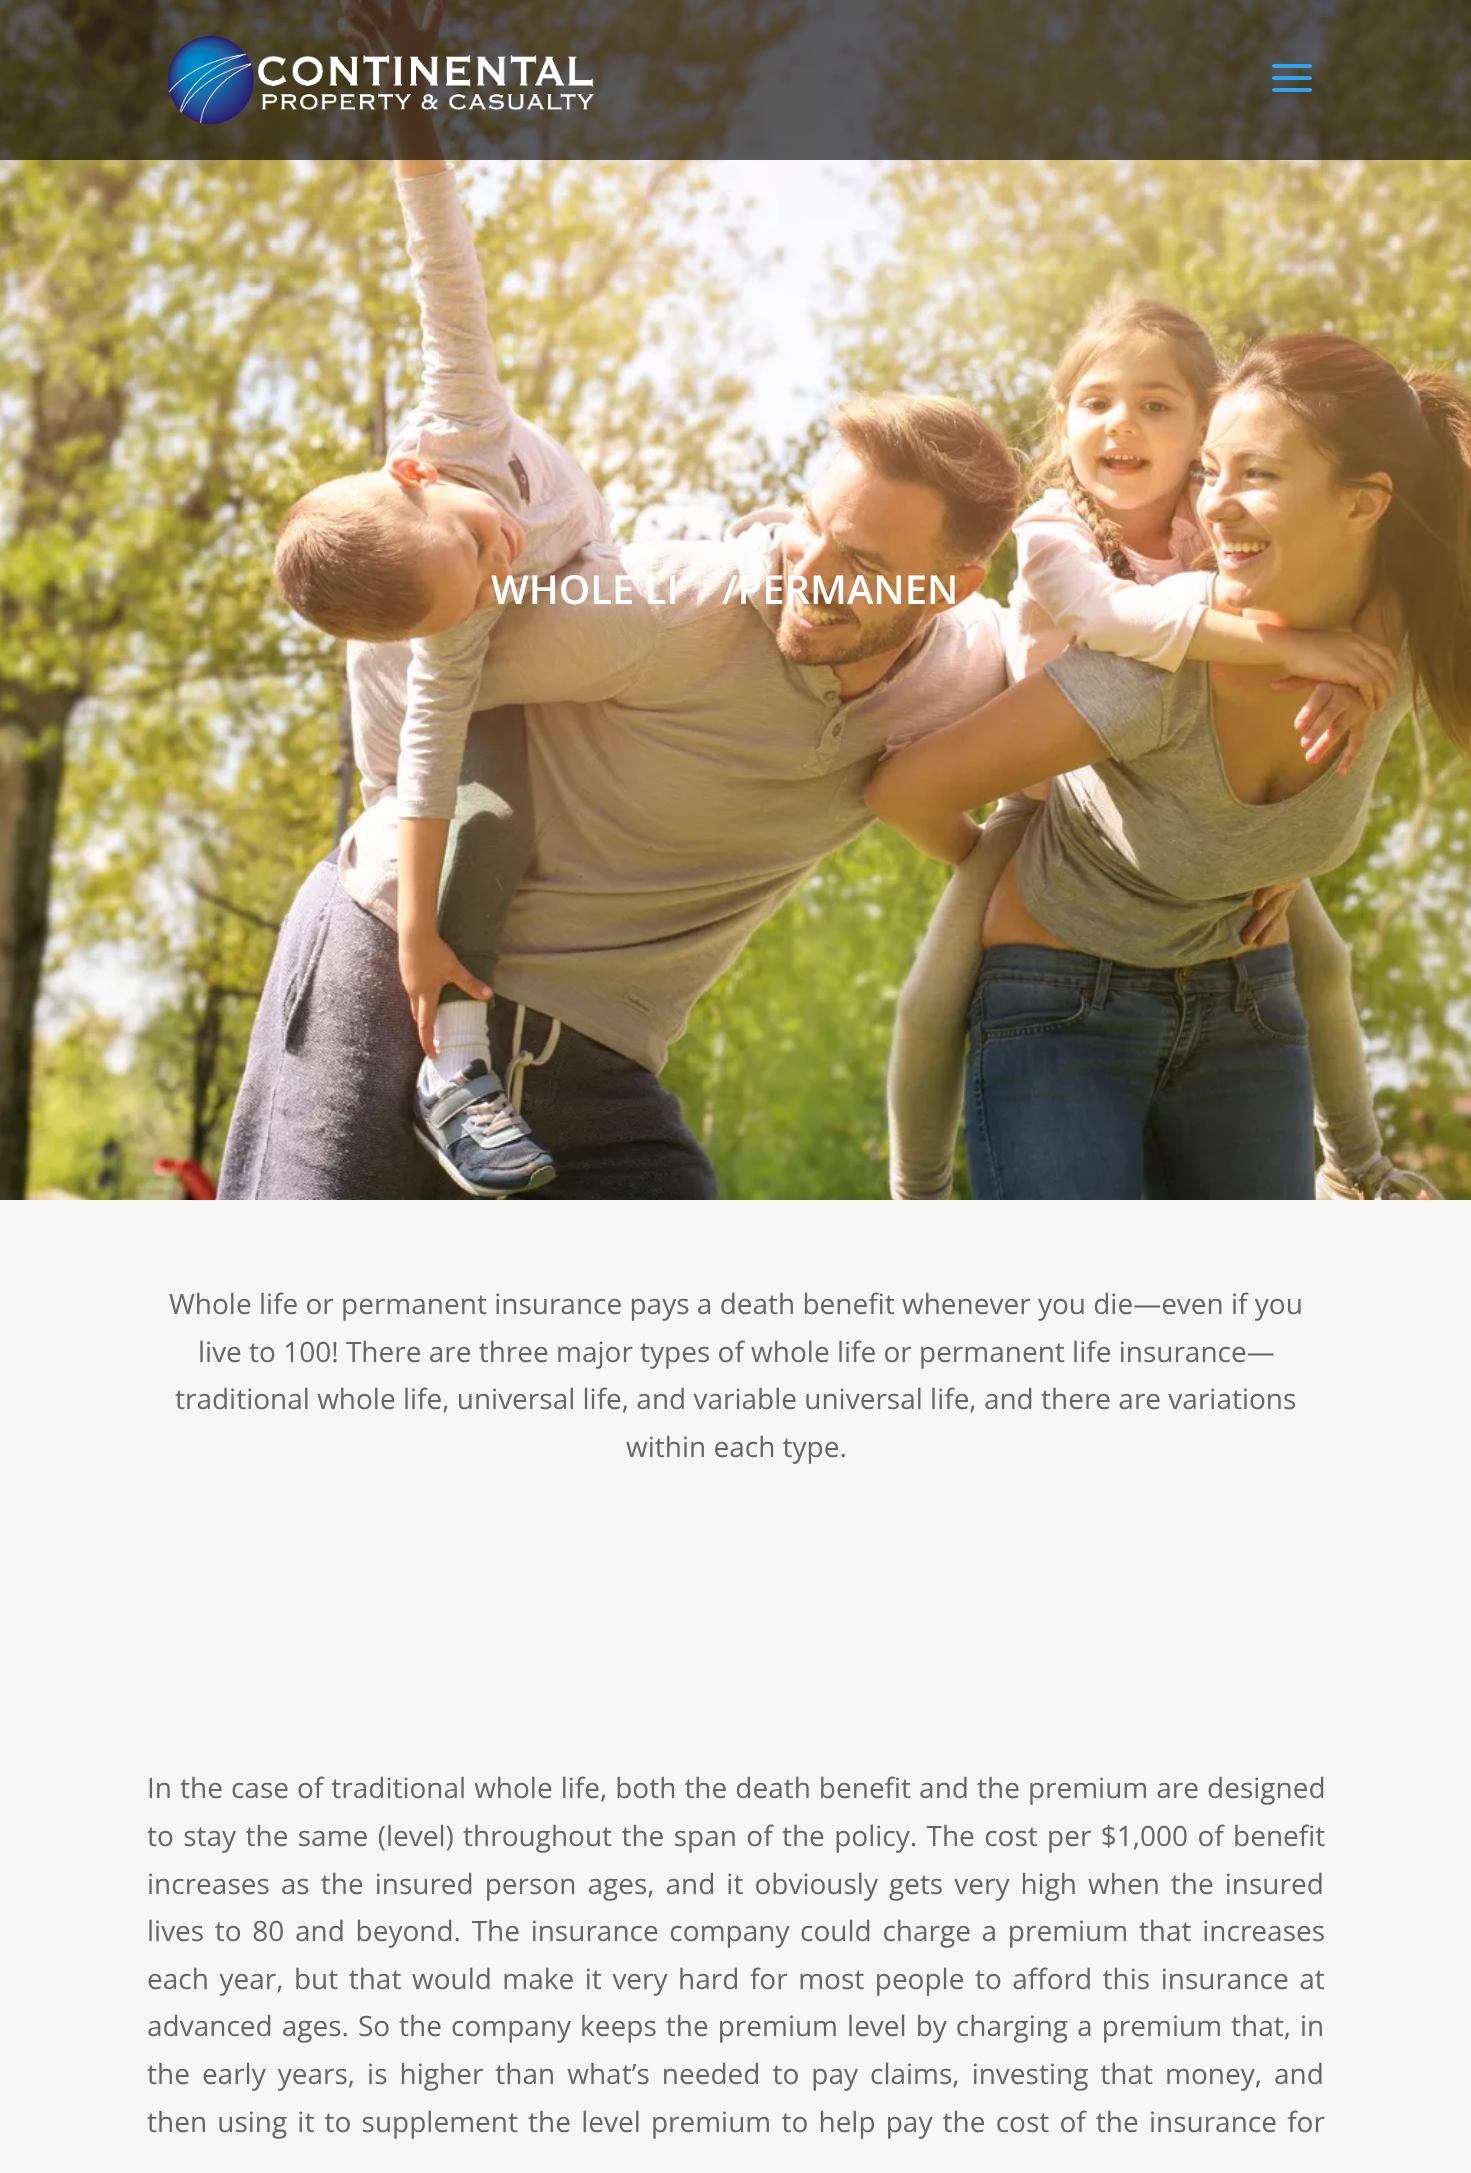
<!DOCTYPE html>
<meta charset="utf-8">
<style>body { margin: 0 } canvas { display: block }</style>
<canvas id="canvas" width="1471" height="2173"></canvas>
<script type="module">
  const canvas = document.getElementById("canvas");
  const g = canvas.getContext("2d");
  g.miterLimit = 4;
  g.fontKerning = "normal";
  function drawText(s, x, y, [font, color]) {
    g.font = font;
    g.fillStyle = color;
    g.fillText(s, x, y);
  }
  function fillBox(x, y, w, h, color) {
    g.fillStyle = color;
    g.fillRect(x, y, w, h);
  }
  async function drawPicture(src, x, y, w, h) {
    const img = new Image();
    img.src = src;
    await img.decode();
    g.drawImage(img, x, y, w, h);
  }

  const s1 = ["600 40px Open Sans", "#FFFFFF"];
  const s2 = ["28px Open Sans", "#666666"];

  fillBox(0, 0, 1471, 2173, "#FFFFFF");
  await drawPicture("pic3.png", 0, 0, 1471, 1200);
  fillBox(0, 0, 1471, 160, "rgba(0, 0, 0, 0.64)");
  await drawPicture("pic1.png", 168, 36, 426, 88);
  await drawPicture("pic2.png", 1272, 64, 40, 28);
  drawText("WHOLE LI", 491, 604, s1);
  drawText("/PERMANEN", 722, 604, s1);
  fillBox(0, 1200, 1471, 973, "#F7F7F7");
  drawText("Whole life or permanent insurance pays a death benefit whenever you die—even if you", 169, 1314, s2);
  drawText("live to 100! There are three major types of whole life or permanent life insurance—", 198, 1362, s2);
  drawText("traditional whole life, universal life, and variable universal life, and there are variations", 175, 1409, s2);
  drawText("within each type.", 626, 1457, s2);
  g.wordSpacing = "0.75px";
  drawText("In the case of traditional whole life, both the death benefit and the premium are designed", 147, 1798, s2);
  g.wordSpacing = "2.1px";
  drawText("to stay the same (level) throughout the span of the policy. The cost per $1,000 of benefit", 147, 1846, s2);
  g.wordSpacing = "3.75px";
  drawText("increases as the insured person ages, and it obviously gets very high when the insured", 147, 1894, s2);
  g.wordSpacing = "3.4px";
  drawText("lives to 80 and beyond. The insurance company could charge a premium that increases", 147, 1941, s2);
  g.wordSpacing = "3.25px";
  drawText("each year, but that would make it very hard for most people to afford this insurance at", 147, 1989, s2);
  g.wordSpacing = "1.75px";
  drawText("advanced ages. So the company keeps the premium level by charging a premium that, in", 147, 2036, s2);
  g.wordSpacing = "4.75px";
  drawText("the early years, is higher than what’s needed to pay claims, investing that money, and", 147, 2084, s2);
  g.wordSpacing = "2.9px";
  drawText("then using it to supplement the level premium to help pay the cost of the insurance for", 147, 2132, s2);
</script>
